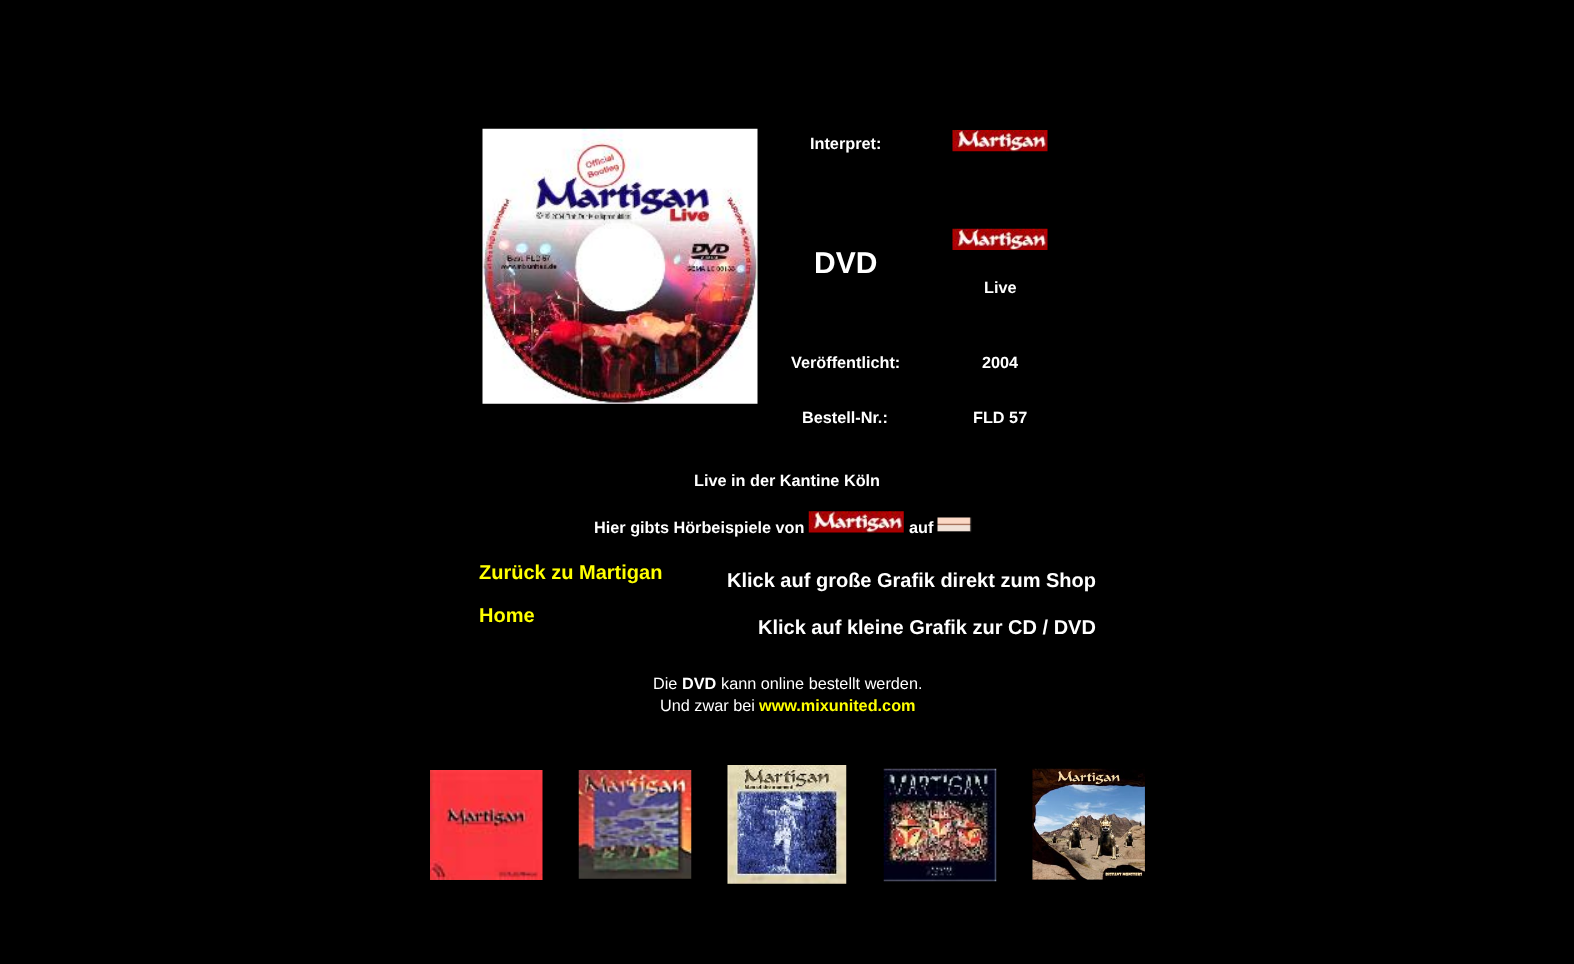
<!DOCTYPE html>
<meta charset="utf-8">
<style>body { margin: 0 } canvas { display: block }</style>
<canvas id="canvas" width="1574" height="964"></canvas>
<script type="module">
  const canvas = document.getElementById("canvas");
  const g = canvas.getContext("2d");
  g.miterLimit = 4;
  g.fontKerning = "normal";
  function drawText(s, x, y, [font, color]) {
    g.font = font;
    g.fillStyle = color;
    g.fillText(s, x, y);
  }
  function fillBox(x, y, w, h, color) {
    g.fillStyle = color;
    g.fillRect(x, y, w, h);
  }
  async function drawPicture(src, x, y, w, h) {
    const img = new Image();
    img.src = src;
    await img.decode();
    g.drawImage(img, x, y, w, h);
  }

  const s1 = ["bold 16.25px Liberation Sans", "#FFFFFF"];
  const s2 = ["bold 30px Liberation Sans", "#FFFFFF"];
  const s3 = ["bold 20px Liberation Sans", "#FFFF00"];
  const s4 = ["bold 20px Liberation Sans", "#FFFFFF"];
  const s5 = ["16.25px Liberation Sans", "#FFFFFF"];
  const s6 = ["bold 16.25px Liberation Sans", "#FFFF00"];

  fillBox(0, 0, 1574, 964, "#000000");
  await drawPicture("pic1.png", 482, 128, 276, 276);
  drawText("Interpret:", 810, 149, s1);
  await drawPicture("pic2.png", 952, 130, 96, 22);
  drawText("DVD", 814, 273, s2);
  await drawPicture("pic3.png", 952, 228, 96, 22);
  drawText("Live", 984, 293, s1);
  drawText("Veröffentlicht:", 791, 368, s1);
  drawText("2004", 982, 368, s1);
  drawText("Bestell-Nr.:", 802, 423, s1);
  drawText("FLD 57", 973, 423, s1);
  drawText("Live in der Kantine Köln", 694, 486, s1);
  drawText("Hier gibts Hörbeispiele von", 594, 533, s1);
  await drawPicture("pic4.png", 808, 511, 96, 22);
  drawText("auf", 909, 533, s1);
  await drawPicture("pic5.png", 937, 517, 35, 16);
  drawText("Zurück zu Martigan", 479, 579, s3);
  drawText("Home", 479, 622, s3);
  drawText("Klick auf große Grafik direkt zum Shop", 727, 587, s4);
  drawText("Klick auf kleine Grafik zur CD / DVD", 758, 634, s4);
  drawText("Die", 653, 689, s5);
  drawText("DVD", 682, 689, s1);
  drawText("kann online bestellt werden.", 721, 689, s5);
  drawText("Und zwar bei", 660, 711, s5);
  drawText("www.mixunited.com", 759, 711, s6);
  await drawPicture("pic6.png", 430, 770, 113, 110);
  await drawPicture("pic7.png", 578, 770, 114, 109);
  await drawPicture("pic8.png", 727, 765, 120, 119);
  await drawPicture("pic9.png", 883, 768, 114, 114);
  await drawPicture("pic10.png", 1032, 768, 113, 112);
</script>
